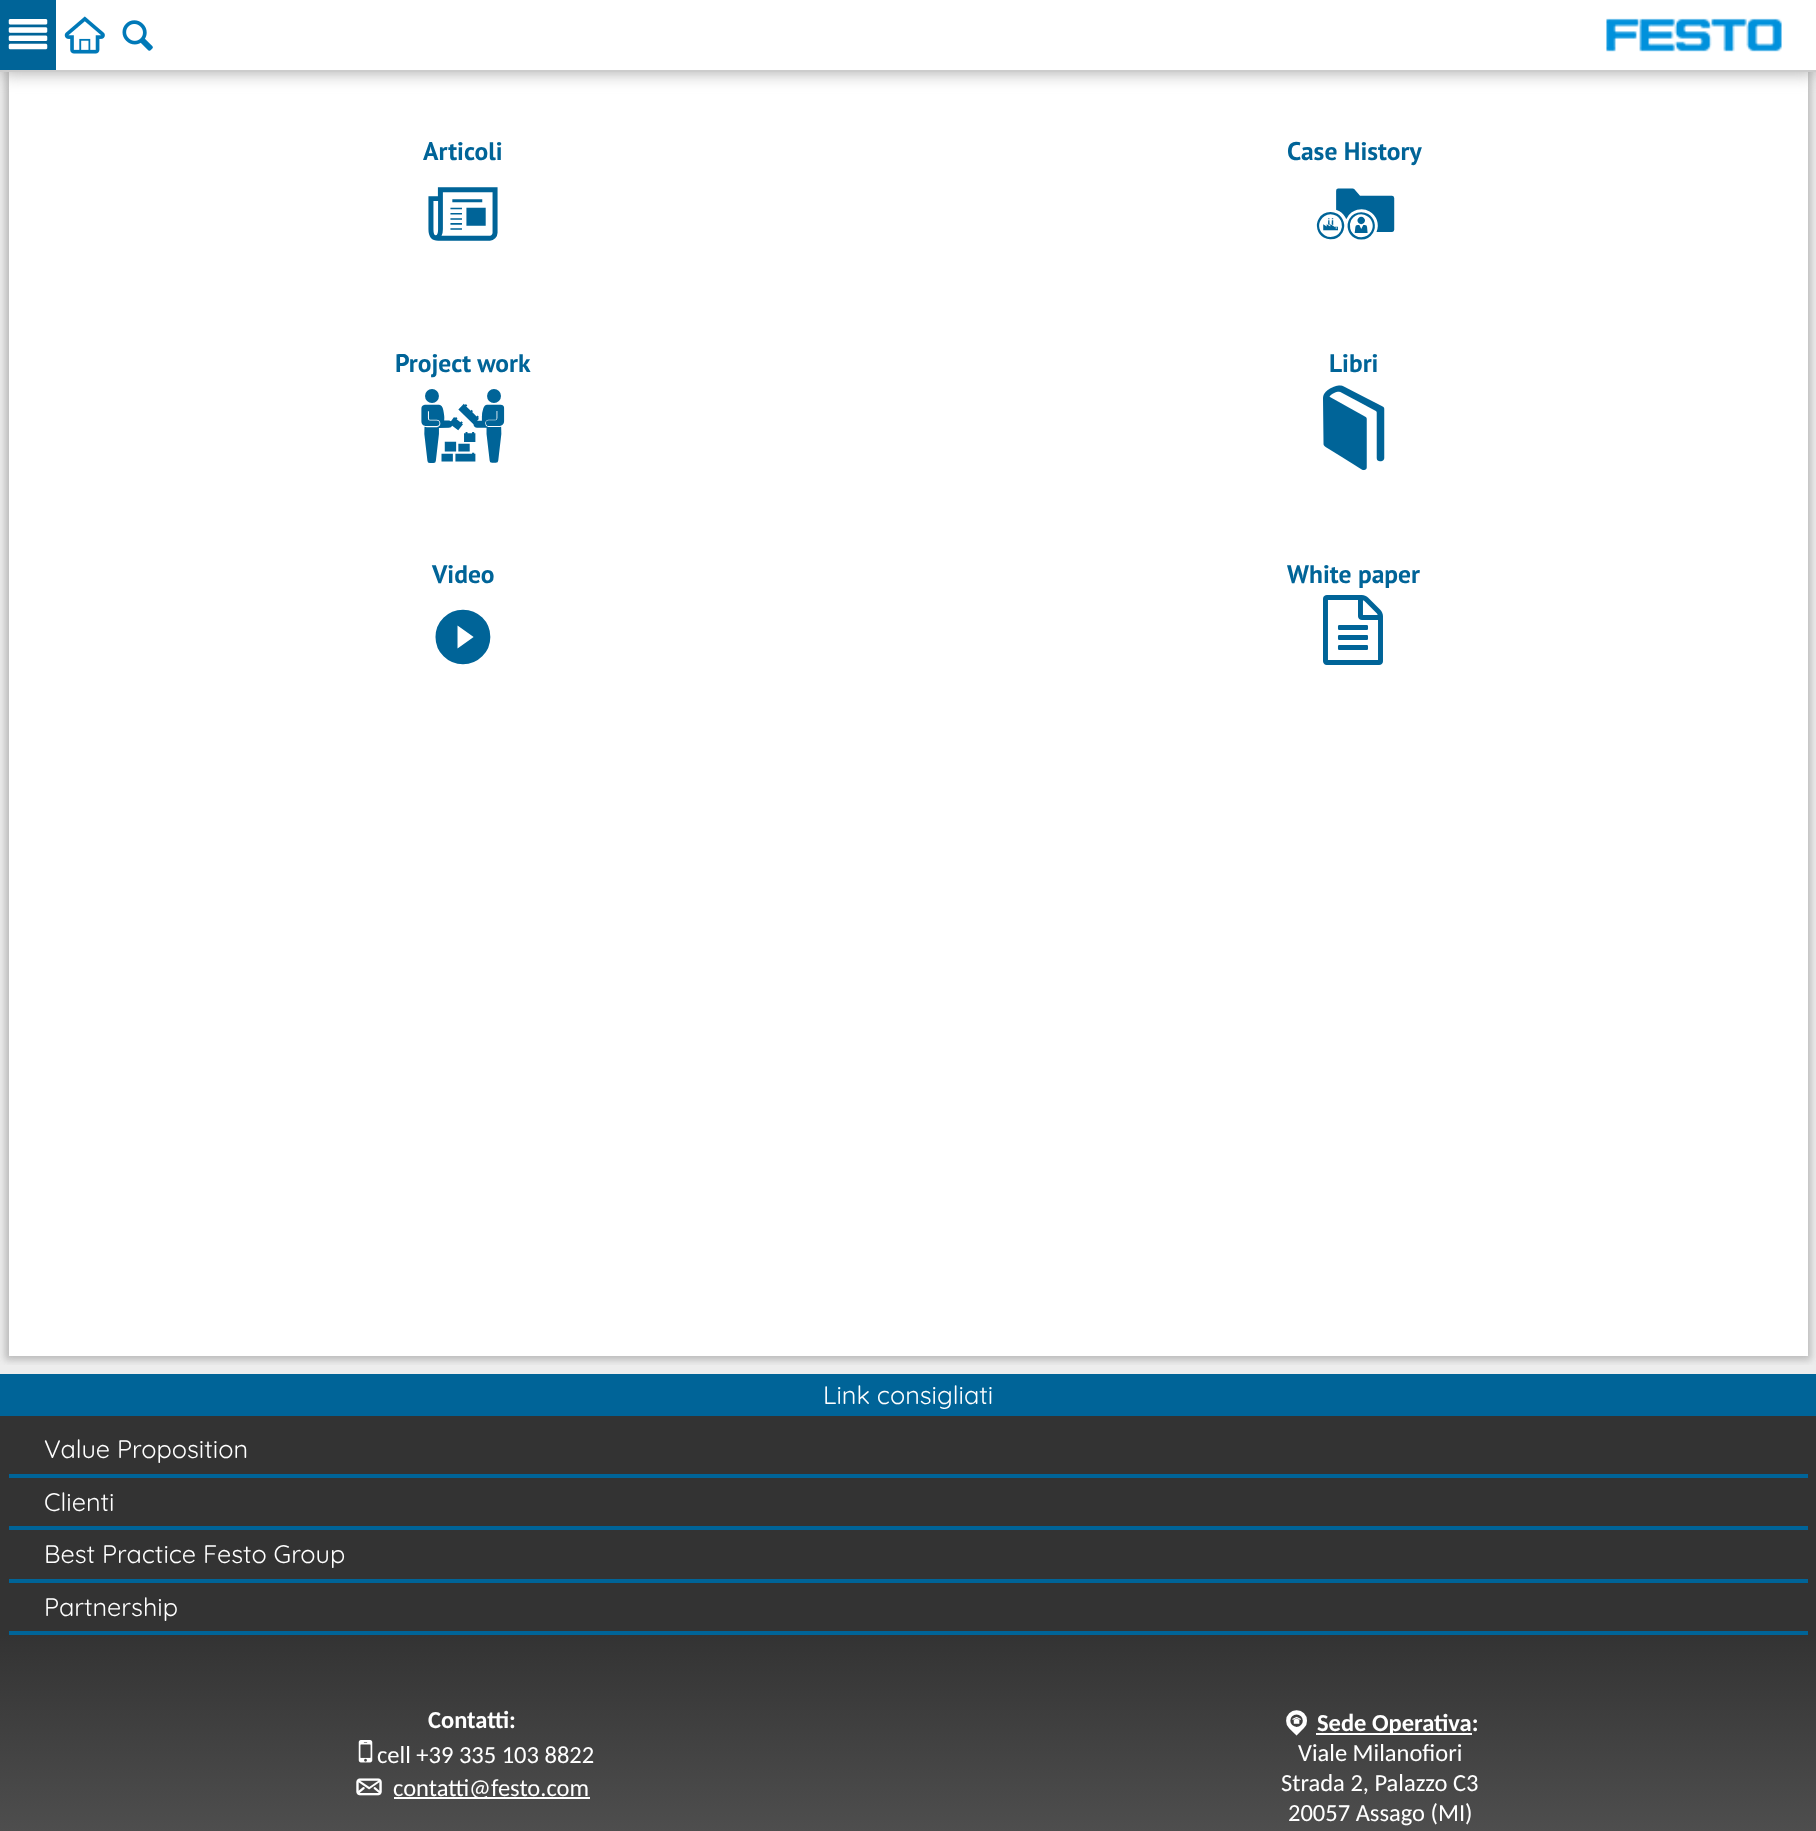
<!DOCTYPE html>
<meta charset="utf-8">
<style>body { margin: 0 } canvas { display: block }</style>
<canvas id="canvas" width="1816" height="1831"></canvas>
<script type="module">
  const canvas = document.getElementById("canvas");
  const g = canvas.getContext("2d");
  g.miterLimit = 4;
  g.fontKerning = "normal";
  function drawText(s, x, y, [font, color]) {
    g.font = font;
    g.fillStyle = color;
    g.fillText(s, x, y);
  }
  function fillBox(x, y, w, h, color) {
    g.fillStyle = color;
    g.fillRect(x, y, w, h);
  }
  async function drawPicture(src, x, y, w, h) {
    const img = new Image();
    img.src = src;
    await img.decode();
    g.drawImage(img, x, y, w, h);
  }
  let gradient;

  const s1 = ["bold 25.5px PT Sans", "#006498"];
  const s2 = ["88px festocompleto", "#006498"];
  const s3 = ["25.25px Quicksand", "#FFFFFF"];
  const s4 = ["bold 24.5px Carlito", "#FFFFFF"];
  const s5 = ["24.5px Carlito", "#FFFFFF"];
  const s6 = ["30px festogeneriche", "#FFFFFF"];

  fillBox(0, 0, 1816, 1831, "#EDEDED");
  g.save();
  g.beginPath();
  g.rect(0, 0, 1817, 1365);
  g.clip();
  g.fillStyle = "#BBBBBB";
  g.filter = "blur(3.5px)";
  g.beginPath();
  g.rect(5, 42, 1806, 1318);
  g.fill();
  g.filter = "none";
  g.restore();
  fillBox(9, 72, 1799, 1284, "#FFFFFF");
  g.fillStyle = "#A5A5A5";
  g.filter = "blur(9px)";
  g.beginPath();
  g.rect(0, 0, 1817, 72);
  g.fill();
  g.filter = "none";
  fillBox(56, 0, 1760, 70, "#FFFFFF");
  fillBox(0, 70, 1816, 2, "#CCCCCC");
  fillBox(0, 0, 56, 70, "#006498");
  await drawPicture("pic1.png", 8, 19, 40, 31);
  await drawPicture("pic2.png", 64, 16, 41, 38);
  await drawPicture("pic3.png", 122, 20, 31, 31);
  await drawPicture("pic4.png", 1606, 18, 176, 34);
  drawText("Articoli", 423, 160, s1);
  drawText("Z", 419, 258, s2);
  drawText("Case History", 1287, 160, s1);
  drawText("2", 1310, 258, s2);
  drawText("Project work", 395, 372, s1);
  drawText(";", 419, 470, s2);
  drawText("Libri", 1329, 372, s1);
  await drawPicture("pic5.png", 1323, 385, 62, 86);
  drawText("Video", 432, 583, s1);
  drawText("0", 419, 681, s2);
  drawText("White paper", 1287, 583, s1);
  await drawPicture("pic6.png", 1323, 595, 60, 70);
  fillBox(0, 1374, 1816, 42, "#006498");
  drawText("Link consigliati", 823, 1404, s3);
  fillBox(0, 1416, 1816, 219, "#333333");
  fillBox(9, 1474, 1799, 4, "#006498");
  drawText("Value Proposition", 44, 1458, s3);
  fillBox(9, 1526, 1799, 4, "#006498");
  drawText("Clienti", 44, 1511, s3);
  fillBox(9, 1579, 1799, 4, "#006498");
  drawText("Best Practice Festo Group", 44, 1563, s3);
  fillBox(9, 1631, 1799, 4, "#006498");
  drawText("Partnership", 44, 1616, s3);
  gradient = g.createLinearGradient(908, 1635, 908, 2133);
  gradient.addColorStop(0, "#333333");
  gradient.addColorStop(1, "#777777");
  g.fillStyle = gradient;
  g.fillRect(0, 1635, 1816, 196);
  drawText("Contatti:", 428, 1728, s4);
  await drawPicture("pic7.png", 358, 1740, 15, 23);
  drawText("cell +39 335 103 8822", 377, 1763, s5);
  drawText("p", 354, 1801, s6);
  fillBox(394, 1797, 196, 2, "#FFFFFF");
  drawText("contatti@festo.com", 393, 1796, s5);
  drawText("q", 1281, 1737, s6);
  fillBox(1316, 1733, 156, 2, "#FFFFFF");
  drawText("Sede Operativa:", 1317, 1731, s4);
  drawText("Viale Milanofiori", 1298, 1761, s5);
  drawText("Strada 2, Palazzo C3", 1281, 1791, s5);
  drawText("20057 Assago (MI)", 1288, 1821, s5);
</script>
